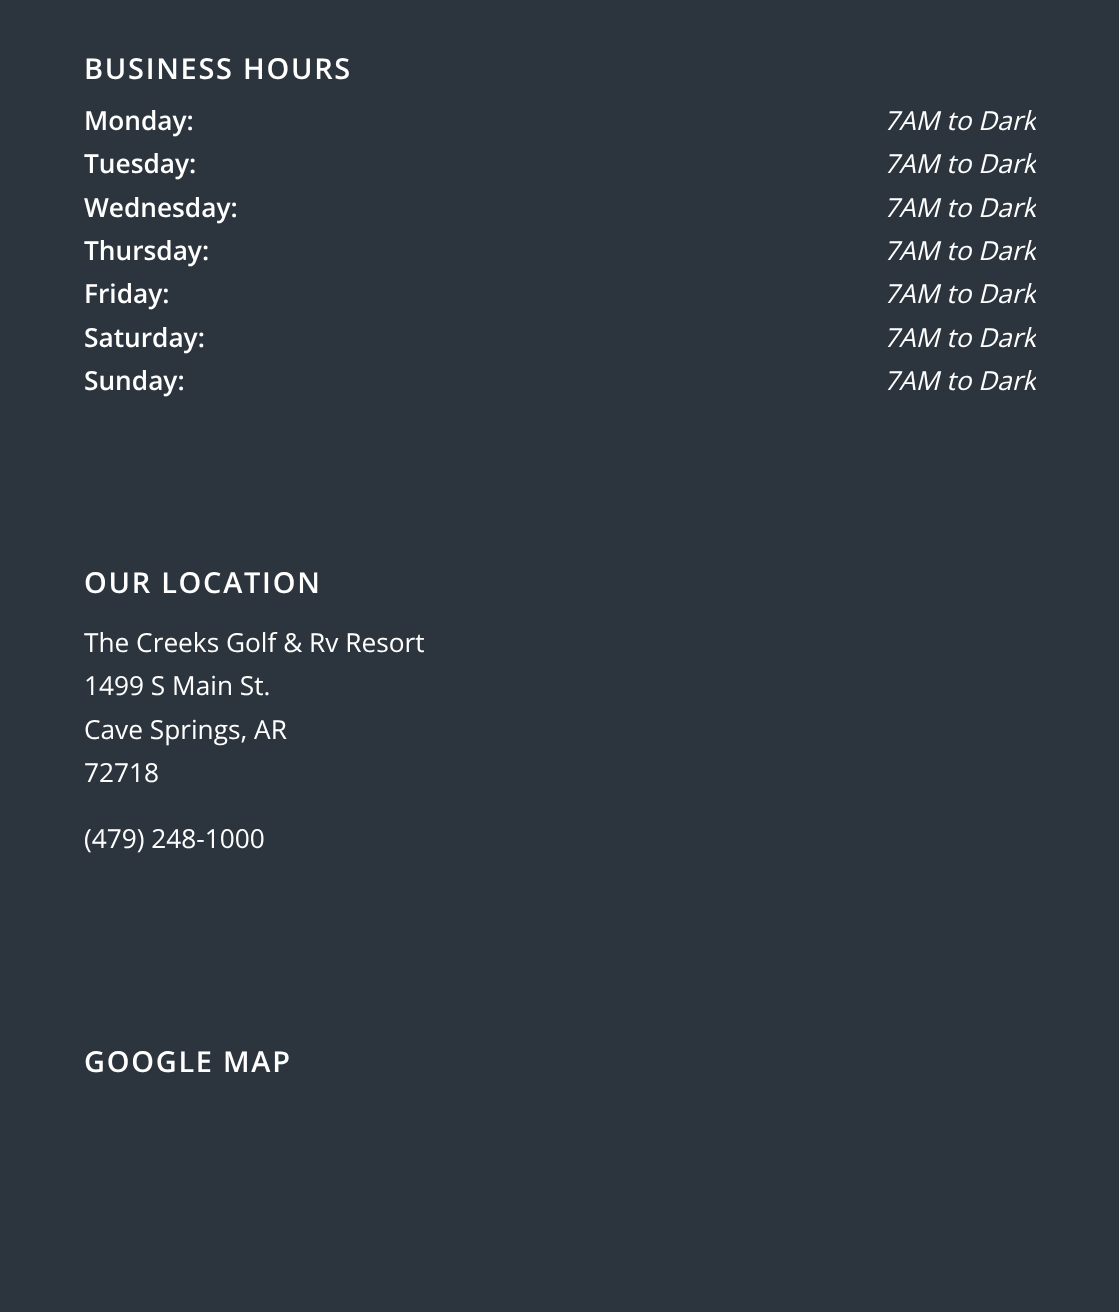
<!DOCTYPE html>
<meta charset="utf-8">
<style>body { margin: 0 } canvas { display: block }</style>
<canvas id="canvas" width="1119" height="1312"></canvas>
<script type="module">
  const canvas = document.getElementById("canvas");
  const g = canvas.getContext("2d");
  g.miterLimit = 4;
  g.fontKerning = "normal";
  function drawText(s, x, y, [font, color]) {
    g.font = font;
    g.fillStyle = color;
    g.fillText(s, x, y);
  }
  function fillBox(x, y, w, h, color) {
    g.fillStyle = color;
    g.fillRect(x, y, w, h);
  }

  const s1 = ["600 28.9px Open Sans", "#FFFFFF"];
  const s2 = ["600 26.25px Open Sans", "#FFFFFF"];
  const s3 = ["italic 26.25px Open Sans", "#FFFFFF"];
  const s4 = ["26.25px Open Sans", "#FFFFFF"];

  fillBox(0, 0, 1119, 1312, "#2C353D");
  g.letterSpacing = "1.75px";
  drawText("BUSINESS HOURS", 84, 79, s1);
  g.letterSpacing = "0px";
  drawText("Monday:", 84, 130, s2);
  drawText("Tuesday:", 84, 173, s2);
  drawText("Wednesday:", 84, 217, s2);
  drawText("Thursday:", 84, 260, s2);
  drawText("Friday:", 84, 303, s2);
  drawText("Saturday:", 84, 347, s2);
  drawText("Sunday:", 84, 390, s2);
  g.save();
  g.beginPath();
  g.rect(84, 28, 952, 375);
  g.clip();
  drawText("7AM to Dark", 884, 130, s3);
  drawText("7AM to Dark", 884, 173, s3);
  drawText("7AM to Dark", 884, 217, s3);
  drawText("7AM to Dark", 884, 260, s3);
  drawText("7AM to Dark", 884, 303, s3);
  drawText("7AM to Dark", 884, 347, s3);
  drawText("7AM to Dark", 884, 390, s3);
  g.restore();
  g.letterSpacing = "1.75px";
  drawText("OUR LOCATION", 84, 593, s1);
  g.letterSpacing = "0px";
  drawText("The Creeks Golf & Rv Resort", 84, 652, s4);
  drawText("1499 S Main St.", 84, 695, s4);
  drawText("Cave Springs, AR", 84, 739, s4);
  drawText("72718", 84, 782, s4);
  drawText("(479) 248-1000", 84, 848, s4);
  g.letterSpacing = "1.75px";
  drawText("GOOGLE MAP", 84, 1072, s1);
</script>
